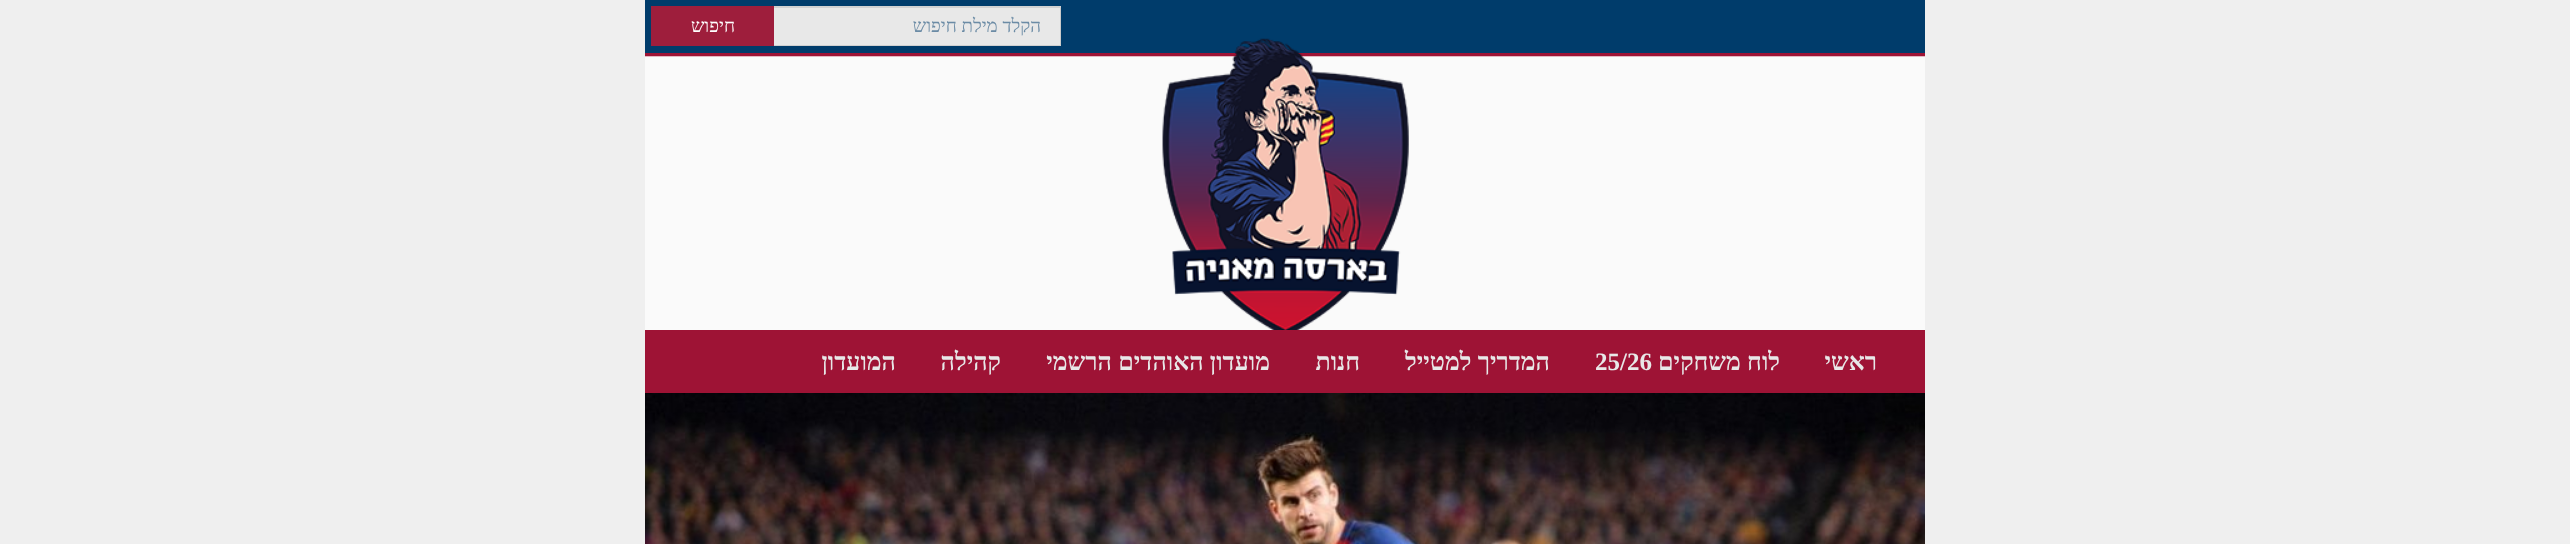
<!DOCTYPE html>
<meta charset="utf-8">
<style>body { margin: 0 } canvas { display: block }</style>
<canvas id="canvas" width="2570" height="544"></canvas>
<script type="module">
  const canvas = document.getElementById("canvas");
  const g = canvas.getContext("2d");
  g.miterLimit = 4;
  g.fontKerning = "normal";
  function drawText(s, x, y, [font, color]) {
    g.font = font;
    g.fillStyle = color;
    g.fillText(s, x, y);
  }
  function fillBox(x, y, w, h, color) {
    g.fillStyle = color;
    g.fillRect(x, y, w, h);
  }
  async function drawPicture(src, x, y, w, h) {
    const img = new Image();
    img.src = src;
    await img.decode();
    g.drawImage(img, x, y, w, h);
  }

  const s1 = ["18.75px Liberation Serif", "#6B8BA5"];
  const s2 = ["18.75px Liberation Serif", "#FFFFFF"];
  const s3 = ["bold 25px Liberation Serif", "#E8E8E8"];

  fillBox(0, 0, 2570, 544, "#EFEFEF");
  fillBox(645, 57, 1280, 273, "#FAFAFA");
  fillBox(645, 0, 1280, 53, "#003C6B");
  fillBox(645, 53, 1280, 3, "#9E1335");
  fillBox(645, 56, 1280, 1, "#E2B8C2");
  fillBox(774, 6, 287, 40, "#E8E8E8");
  g.fillStyle = "#D1D1D1";
  g.beginPath();
  g.moveTo(774, 6);
  g.lineTo(1061, 6);
  g.lineTo(1060, 8);
  g.lineTo(774, 8);
  g.closePath();
  g.fill();
  g.fillStyle = "#CACACA";
  g.beginPath();
  g.moveTo(1061, 6);
  g.lineTo(1061, 46);
  g.lineTo(1060, 45);
  g.lineTo(1060, 8);
  g.closePath();
  g.fill();
  g.fillStyle = "rgba(0, 0, 0, 0.1)";
  g.beginPath();
  g.moveTo(1061, 46);
  g.lineTo(774, 46);
  g.lineTo(774, 45);
  g.lineTo(1060, 45);
  g.closePath();
  g.fill();
  g.direction = "rtl";
  drawText("הקלד מילת חיפוש", 1041, 32, s1);
  fillBox(651, 6, 123, 40, "#9E1E3C");
  drawText("חיפוש", 735, 32, s2);
  await drawPicture("pic1.png", 1162, 38, 247, 292);
  fillBox(645, 330, 1280, 63, "#9E1335");
  drawText("ראשי", 1877, 370, s3);
  drawText("לוח משחקים", 1780, 370, s3);
  g.direction = "ltr";
  drawText("25/26", 1595, 370, s3);
  g.direction = "rtl";
  drawText("המדריך למטייל", 1550, 370, s3);
  drawText("חנות", 1360, 370, s3);
  drawText("מועדון האוהדים הרשמי", 1270, 370, s3);
  drawText("קהילה", 1001, 370, s3);
  drawText("המועדון", 896, 370, s3);
  await drawPicture("pic2.png", 645, 393, 1280, 151);
</script>
